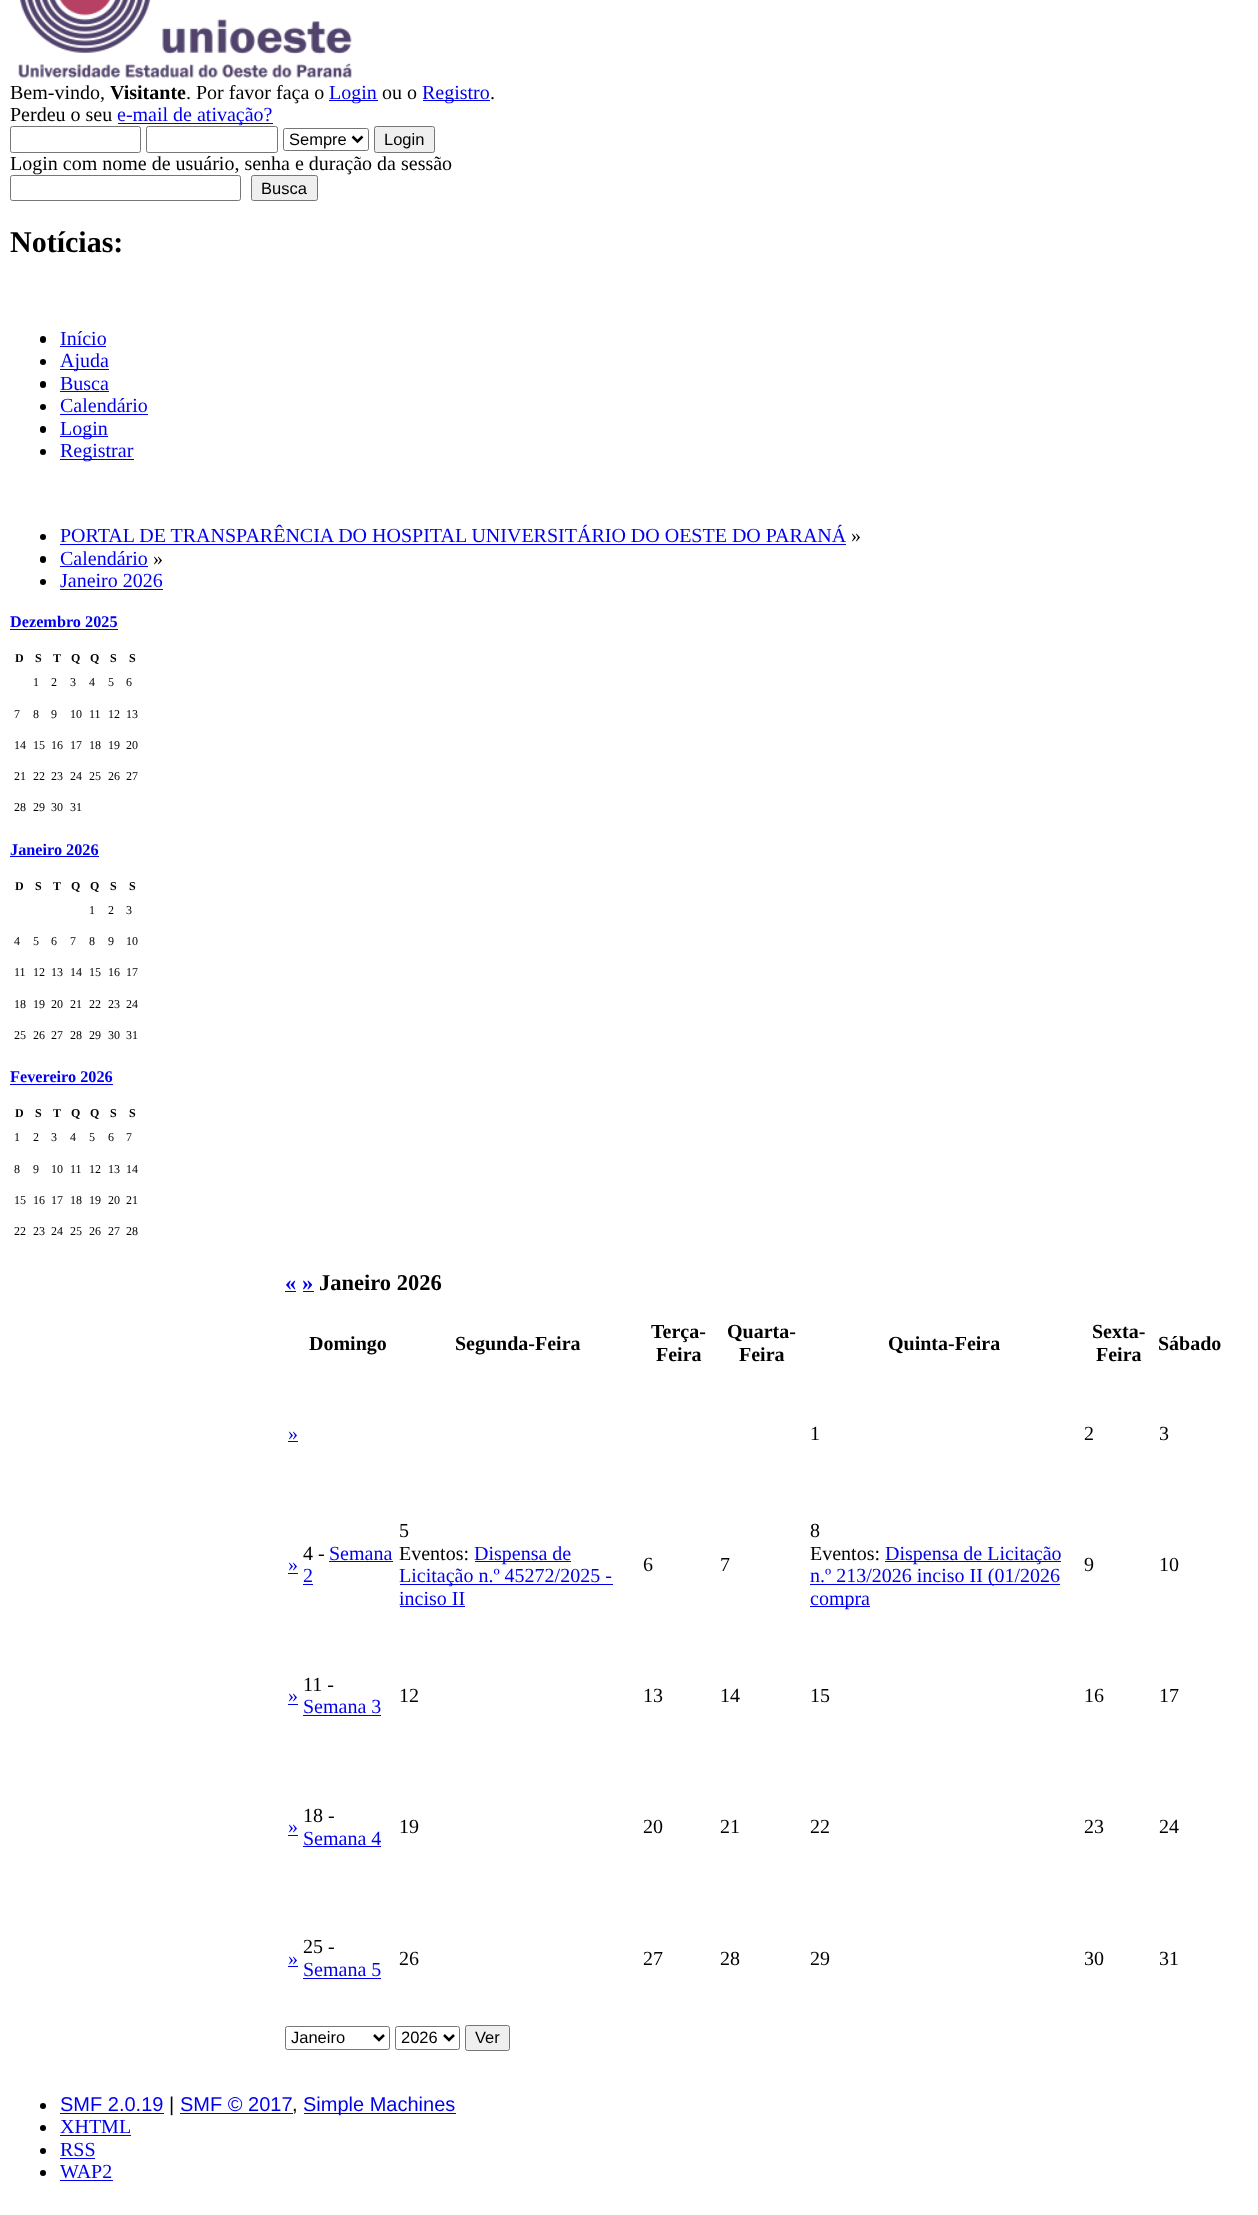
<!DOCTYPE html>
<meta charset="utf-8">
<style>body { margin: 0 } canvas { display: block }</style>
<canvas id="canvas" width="1258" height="2215"></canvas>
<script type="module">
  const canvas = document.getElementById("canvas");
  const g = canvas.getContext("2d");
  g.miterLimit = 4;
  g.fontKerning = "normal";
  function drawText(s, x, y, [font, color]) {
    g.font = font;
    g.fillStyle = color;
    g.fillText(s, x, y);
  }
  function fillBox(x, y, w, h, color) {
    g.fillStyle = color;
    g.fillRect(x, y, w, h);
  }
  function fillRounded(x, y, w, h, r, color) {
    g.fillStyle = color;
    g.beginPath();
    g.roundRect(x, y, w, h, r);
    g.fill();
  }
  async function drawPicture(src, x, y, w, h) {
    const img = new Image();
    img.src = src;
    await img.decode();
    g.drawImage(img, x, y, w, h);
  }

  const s1 = ["20px Liberation Serif", "#000000"];
  const s2 = ["bold 20px Liberation Serif", "#000000"];
  const s3 = ["20px Liberation Serif", "#0000EE"];
  const s4 = ["16.5px Liberation Sans", "#000000"];
  const s5 = ["bold 30px Liberation Serif", "#000000"];
  const s6 = ["bold 16.25px Liberation Serif", "#0000EE"];
  const s7 = ["bold 12px Liberation Serif", "#000000"];
  const s8 = ["12px Liberation Serif", "#000000"];
  const s9 = ["bold 22.5px Liberation Serif", "#0000EE"];
  const s10 = ["bold 22.5px Liberation Serif", "#000000"];
  const s11 = ["20px Liberation Sans", "#0000EE"];
  const s12 = ["20px Liberation Sans", "#000000"];

  fillBox(0, 0, 1258, 2215, "#FFFFFF");
  await drawPicture("pic1.png", 18, 0, 334, 78);
  drawText("Bem-vindo,", 10, 99, s1);
  drawText("Visitante", 110, 99, s2);
  drawText(". Por favor faça o", 186, 99, s1);
  fillBox(329, 100, 49, 1, "#0000EE");
  drawText("Login", 329, 99, s3);
  drawText("ou o", 382, 99, s1);
  fillBox(423, 100, 67, 1, "#0000EE");
  drawText("Registro", 422, 99, s3);
  drawText(".", 490, 99, s1);
  drawText("Perdeu o seu", 10, 121, s1);
  fillBox(118, 123, 155, 1, "#0000EE");
  drawText("e-mail de ativação?", 117, 121, s3);
  g.beginPath();
  g.roundRect(10.5, 126.5, 130, 26, 2);
  g.strokeStyle = "#767676";
  g.stroke();
  g.beginPath();
  g.roundRect(146.5, 126.5, 131, 26, 2);
  g.stroke();
  g.beginPath();
  g.roundRect(283.5, 128.5, 85, 22, 2);
  g.stroke();
  g.beginPath();
  g.moveTo(352.5, 136.5);
  g.lineTo(357.5, 141.5);
  g.lineTo(362.5, 136.5);
  g.strokeStyle = "#000000";
  g.lineWidth = 2.5;
  g.stroke();
  drawText("Sempre", 289, 145, s4);
  g.fillStyle = "#EFEFEF";
  g.beginPath();
  g.roundRect(374.5, 126.5, 60, 26, 2);
  g.fill();
  g.strokeStyle = "#767676";
  g.lineWidth = 1;
  g.stroke();
  drawText("Login", 384, 145, s4);
  drawText("Login com nome de usuário, senha e duração da sessão", 10, 170, s1);
  g.beginPath();
  g.roundRect(10.5, 175.5, 230, 25, 2);
  g.stroke();
  g.fillStyle = "#EFEFEF";
  g.beginPath();
  g.roundRect(251.5, 175.5, 66, 25, 2);
  g.fill();
  g.stroke();
  drawText("Busca", 261, 194, s4);
  drawText("Notícias:", 10, 252, s5);
  fillRounded(40, 336, 6, 7, 3, "#000000");
  drawText("Início", 60, 345, s3);
  fillBox(60, 346, 46, 1, "#0000EE");
  g.fillStyle = "#000000";
  g.beginPath();
  g.arc(43, 362, 3, 0, Math.PI * 2);
  g.fill();
  fillBox(60, 369, 49, 1, "#0000EE");
  drawText("Ajuda", 60, 367, s3);
  fillRounded(40, 381, 6, 7, 3, "#000000");
  drawText("Busca", 60, 390, s3);
  fillBox(60, 391, 49, 1, "#0000EE");
  g.fillStyle = "#000000";
  g.beginPath();
  g.arc(43, 407, 3, 0, Math.PI * 2);
  g.fill();
  drawText("Calendário", 60, 412, s3);
  fillBox(60, 414, 88, 1, "#0000EE");
  fillRounded(40, 426, 6, 7, 3, "#000000");
  fillBox(60, 436, 48, 1, "#0000EE");
  drawText("Login", 60, 435, s3);
  g.fillStyle = "#000000";
  g.beginPath();
  g.arc(43, 452, 3, 0, Math.PI * 2);
  g.fill();
  fillBox(60, 459, 74, 1, "#0000EE");
  drawText("Registrar", 60, 457, s3);
  g.fillStyle = "#000000";
  g.beginPath();
  g.arc(43, 537, 3, 0, Math.PI * 2);
  g.fill();
  drawText("PORTAL DE TRANSPARÊNCIA DO HOSPITAL UNIVERSITÁRIO DO OESTE DO PARANÁ", 60, 542, s3);
  fillBox(60, 544, 786, 1, "#0000EE");
  drawText("»", 851, 542, s1);
  fillRounded(40, 556, 6, 7, 3, "#000000");
  drawText("Calendário", 60, 565, s3);
  fillBox(60, 566, 88, 1, "#0000EE");
  drawText("»", 153, 565, s1);
  g.beginPath();
  g.arc(43, 582, 3, 0, Math.PI * 2);
  g.fill();
  drawText("Janeiro 2026", 60, 587, s3);
  fillBox(60, 589, 103, 1, "#0000EE");
  drawText("Dezembro 2025", 10, 627, s6);
  fillBox(10, 629, 108, 1, "#0000EE");
  drawText("D", 15, 662, s7);
  drawText("S", 35, 662, s7);
  drawText("T", 53, 662, s7);
  drawText("Q", 71, 662, s7);
  drawText("Q", 90, 662, s7);
  drawText("S", 110, 662, s7);
  drawText("S", 129, 662, s7);
  drawText("1", 33, 686, s8);
  drawText("2", 51, 686, s8);
  drawText("3", 70, 686, s8);
  drawText("4", 89, 686, s8);
  drawText("5", 108, 686, s8);
  drawText("6", 126, 686, s8);
  drawText("7", 14, 718, s8);
  drawText("8", 33, 718, s8);
  drawText("9", 51, 718, s8);
  drawText("10", 70, 718, s8);
  drawText("11", 89, 718, s8);
  drawText("12", 108, 718, s8);
  drawText("13", 126, 718, s8);
  drawText("14", 14, 749, s8);
  drawText("15", 33, 749, s8);
  drawText("16", 51, 749, s8);
  drawText("17", 70, 749, s8);
  drawText("18", 89, 749, s8);
  drawText("19", 108, 749, s8);
  drawText("20", 126, 749, s8);
  drawText("21", 14, 780, s8);
  drawText("22", 33, 780, s8);
  drawText("23", 51, 780, s8);
  drawText("24", 70, 780, s8);
  drawText("25", 89, 780, s8);
  drawText("26", 108, 780, s8);
  drawText("27", 126, 780, s8);
  drawText("28", 14, 811, s8);
  drawText("29", 33, 811, s8);
  drawText("30", 51, 811, s8);
  drawText("31", 70, 811, s8);
  drawText("Janeiro 2026", 10, 855, s6);
  fillBox(10, 856, 89, 1, "#0000EE");
  drawText("D", 15, 890, s7);
  drawText("S", 35, 890, s7);
  drawText("T", 53, 890, s7);
  drawText("Q", 71, 890, s7);
  drawText("Q", 90, 890, s7);
  drawText("S", 110, 890, s7);
  drawText("S", 129, 890, s7);
  drawText("1", 89, 914, s8);
  drawText("2", 108, 914, s8);
  drawText("3", 126, 914, s8);
  drawText("4", 14, 945, s8);
  drawText("5", 33, 945, s8);
  drawText("6", 51, 945, s8);
  drawText("7", 70, 945, s8);
  drawText("8", 89, 945, s8);
  drawText("9", 108, 945, s8);
  drawText("10", 126, 945, s8);
  drawText("11", 14, 976, s8);
  drawText("12", 33, 976, s8);
  drawText("13", 51, 976, s8);
  drawText("14", 70, 976, s8);
  drawText("15", 89, 976, s8);
  drawText("16", 108, 976, s8);
  drawText("17", 126, 976, s8);
  drawText("18", 14, 1008, s8);
  drawText("19", 33, 1008, s8);
  drawText("20", 51, 1008, s8);
  drawText("21", 70, 1008, s8);
  drawText("22", 89, 1008, s8);
  drawText("23", 108, 1008, s8);
  drawText("24", 126, 1008, s8);
  drawText("25", 14, 1039, s8);
  drawText("26", 33, 1039, s8);
  drawText("27", 51, 1039, s8);
  drawText("28", 70, 1039, s8);
  drawText("29", 89, 1039, s8);
  drawText("30", 108, 1039, s8);
  drawText("31", 126, 1039, s8);
  drawText("Fevereiro 2026", 10, 1082, s6);
  fillBox(10, 1084, 103, 1, "#0000EE");
  drawText("D", 15, 1117, s7);
  drawText("S", 35, 1117, s7);
  drawText("T", 53, 1117, s7);
  drawText("Q", 71, 1117, s7);
  drawText("Q", 90, 1117, s7);
  drawText("S", 110, 1117, s7);
  drawText("S", 129, 1117, s7);
  drawText("1", 14, 1141, s8);
  drawText("2", 33, 1141, s8);
  drawText("3", 51, 1141, s8);
  drawText("4", 70, 1141, s8);
  drawText("5", 89, 1141, s8);
  drawText("6", 108, 1141, s8);
  drawText("7", 126, 1141, s8);
  drawText("8", 14, 1173, s8);
  drawText("9", 33, 1173, s8);
  drawText("10", 51, 1173, s8);
  drawText("11", 70, 1173, s8);
  drawText("12", 89, 1173, s8);
  drawText("13", 108, 1173, s8);
  drawText("14", 126, 1173, s8);
  drawText("15", 14, 1204, s8);
  drawText("16", 33, 1204, s8);
  drawText("17", 51, 1204, s8);
  drawText("18", 70, 1204, s8);
  drawText("19", 89, 1204, s8);
  drawText("20", 108, 1204, s8);
  drawText("21", 126, 1204, s8);
  drawText("22", 14, 1235, s8);
  drawText("23", 33, 1235, s8);
  drawText("24", 51, 1235, s8);
  drawText("25", 70, 1235, s8);
  drawText("26", 89, 1235, s8);
  drawText("27", 108, 1235, s8);
  drawText("28", 126, 1235, s8);
  drawText("« »", 285, 1290, s9);
  fillBox(285, 1291, 11, 1, "#0000EE");
  drawText("Janeiro 2026", 319, 1290, s10);
  fillBox(303, 1291, 11, 1, "#0000EE");
  drawText("Domingo", 309, 1350, s2);
  drawText("Segunda-Feira", 455, 1350, s2);
  drawText("Terça-", 651, 1338, s2);
  drawText("Feira", 656, 1361, s2);
  drawText("Quarta-", 727, 1338, s2);
  drawText("Feira", 739, 1361, s2);
  drawText("Quinta-Feira", 888, 1350, s2);
  drawText("Sexta-", 1092, 1338, s2);
  drawText("Feira", 1096, 1361, s2);
  drawText("Sábado", 1158, 1350, s2);
  drawText("»", 288, 1440, s3);
  fillBox(288, 1441, 10, 1, "#0000EE");
  drawText("1", 810, 1440, s1);
  drawText("2", 1084, 1440, s1);
  drawText("3", 1159, 1440, s1);
  drawText("»", 288, 1571, s3);
  fillBox(288, 1573, 10, 1, "#0000EE");
  drawText("4 -", 303, 1560, s1);
  drawText("Semana", 329, 1560, s3);
  fillBox(329, 1561, 64, 1, "#0000EE");
  drawText("2", 303, 1582, s3);
  fillBox(303, 1584, 10, 1, "#0000EE");
  drawText("5", 399, 1537, s1);
  drawText("Eventos:", 399, 1560, s1);
  fillBox(475, 1561, 96, 1, "#0000EE");
  drawText("Dispensa de", 474, 1560, s3);
  fillBox(400, 1584, 213, 1, "#0000EE");
  drawText("Licitação n.º 45272/2025 -", 399, 1582, s3);
  drawText("inciso II", 399, 1605, s3);
  fillBox(400, 1606, 65, 1, "#0000EE");
  drawText("6", 643, 1571, s1);
  drawText("7", 720, 1571, s1);
  drawText("8", 810, 1537, s1);
  drawText("Eventos:", 810, 1560, s1);
  fillBox(885, 1561, 176, 1, "#0000EE");
  drawText("Dispensa de Licitação", 885, 1560, s3);
  fillBox(810, 1584, 250, 1, "#0000EE");
  drawText("n.º 213/2026 inciso II (01/2026", 810, 1582, s3);
  fillBox(810, 1606, 60, 1, "#0000EE");
  drawText("compra", 810, 1605, s3);
  drawText("9", 1084, 1571, s1);
  drawText("10", 1159, 1571, s1);
  drawText("»", 288, 1702, s3);
  fillBox(288, 1704, 10, 1, "#0000EE");
  drawText("11 -", 303, 1691, s1);
  drawText("Semana 3", 303, 1713, s3);
  fillBox(303, 1715, 78, 1, "#0000EE");
  drawText("12", 399, 1702, s1);
  drawText("13", 643, 1702, s1);
  drawText("14", 720, 1702, s1);
  drawText("15", 810, 1702, s1);
  drawText("16", 1084, 1702, s1);
  drawText("17", 1159, 1702, s1);
  drawText("»", 288, 1833, s3);
  fillBox(288, 1835, 10, 1, "#0000EE");
  drawText("18 -", 303, 1822, s1);
  drawText("Semana 4", 303, 1845, s3);
  fillBox(303, 1846, 78, 1, "#0000EE");
  drawText("19", 399, 1833, s1);
  drawText("20", 643, 1833, s1);
  drawText("21", 720, 1833, s1);
  drawText("22", 810, 1833, s1);
  drawText("23", 1084, 1833, s1);
  drawText("24", 1159, 1833, s1);
  drawText("»", 288, 1965, s3);
  fillBox(288, 1966, 10, 1, "#0000EE");
  drawText("25 -", 303, 1953, s1);
  drawText("Semana 5", 303, 1976, s3);
  fillBox(303, 1978, 78, 1, "#0000EE");
  drawText("26", 399, 1965, s1);
  drawText("27", 643, 1965, s1);
  drawText("28", 720, 1965, s1);
  drawText("29", 810, 1965, s1);
  drawText("30", 1084, 1965, s1);
  drawText("31", 1159, 1965, s1);
  g.beginPath();
  g.roundRect(285.5, 2026.5, 104, 23, 2);
  g.stroke();
  g.beginPath();
  g.moveTo(374, 2035);
  g.lineTo(379, 2040);
  g.lineTo(384, 2035);
  g.strokeStyle = "#000000";
  g.lineWidth = 2.5;
  g.stroke();
  drawText("Janeiro", 291, 2043, s4);
  g.beginPath();
  g.roundRect(395.5, 2026.5, 64, 23, 2);
  g.strokeStyle = "#767676";
  g.lineWidth = 1;
  g.stroke();
  g.beginPath();
  g.moveTo(444, 2035);
  g.lineTo(449, 2040);
  g.lineTo(454, 2035);
  g.strokeStyle = "#000000";
  g.lineWidth = 2.5;
  g.stroke();
  drawText("2026", 401, 2043, s4);
  g.fillStyle = "#EFEFEF";
  g.beginPath();
  g.roundRect(465.5, 2025.5, 44, 25, 2);
  g.fill();
  g.strokeStyle = "#767676";
  g.lineWidth = 1;
  g.stroke();
  drawText("Ver", 475, 2043, s4);
  g.beginPath();
  g.arc(43, 2106, 3, 0, Math.PI * 2);
  g.fill();
  drawText("SMF 2.0.19", 60, 2111, s11);
  fillBox(60, 2113, 104, 1, "#0000EE");
  drawText("|", 169, 2111, s12);
  drawText("SMF © 2017", 180, 2111, s11);
  fillBox(304, 2113, 152, 1, "#0000EE");
  drawText("Simple Machines", 303, 2111, s11);
  drawText(",", 292, 2111, s12);
  fillBox(180, 2113, 113, 1, "#0000EE");
  g.fillStyle = "#000000";
  g.beginPath();
  g.arc(43, 2128, 3, 0, Math.PI * 2);
  g.fill();
  drawText("XHTML", 60, 2133, s3);
  fillBox(60, 2135, 71, 1, "#0000EE");
  g.fillStyle = "#000000";
  g.beginPath();
  g.arc(43, 2151, 3, 0, Math.PI * 2);
  g.fill();
  drawText("RSS", 60, 2156, s3);
  fillBox(60, 2158, 35, 1, "#0000EE");
  g.fillStyle = "#000000";
  g.beginPath();
  g.arc(43, 2173, 3, 0, Math.PI * 2);
  g.fill();
  drawText("WAP2", 60, 2178, s3);
  fillBox(60, 2180, 53, 1, "#0000EE");
</script>
